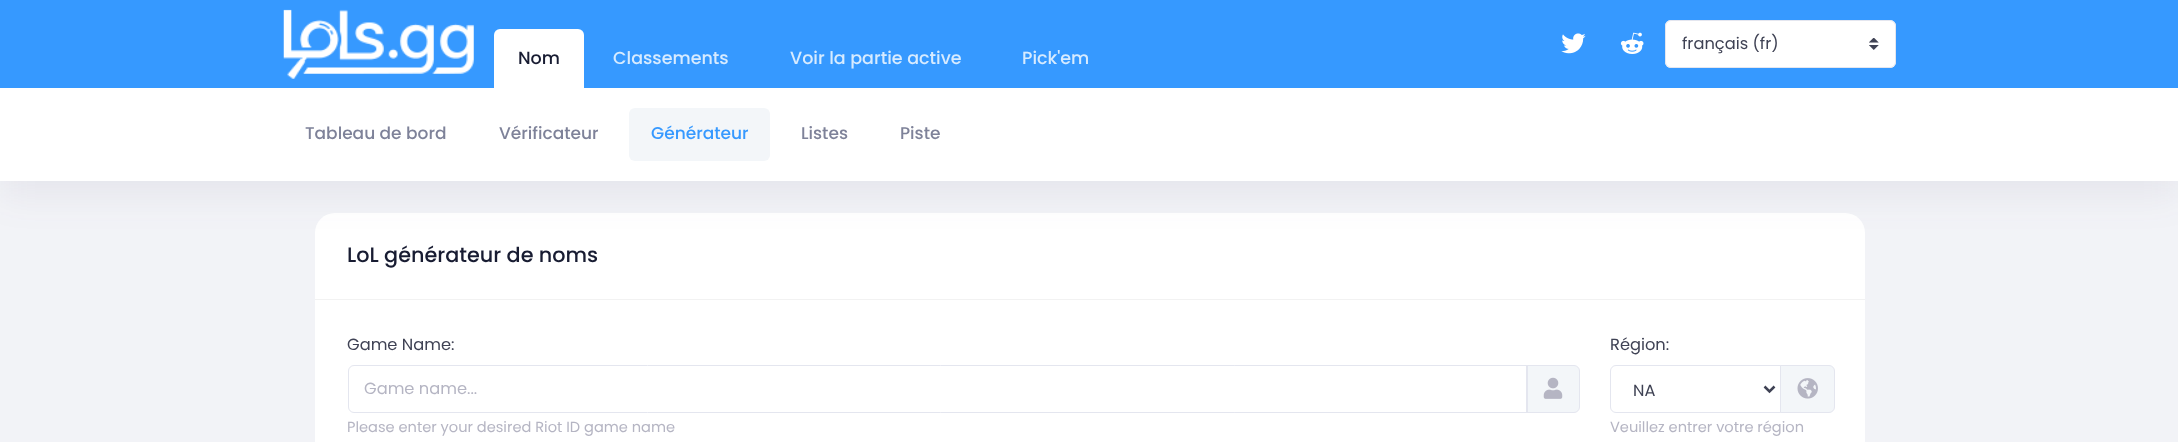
<!DOCTYPE html>
<meta charset="utf-8">
<style>body { margin: 0 } canvas { display: block }</style>
<canvas id="canvas" width="2178" height="442"></canvas>
<script type="module">
  const canvas = document.getElementById("canvas");
  const g = canvas.getContext("2d");
  g.miterLimit = 4;
  g.fontKerning = "normal";
  function drawText(s, x, y, [font, color]) {
    g.font = font;
    g.fillStyle = color;
    g.fillText(s, x, y);
  }
  function fillBox(x, y, w, h, color) {
    g.fillStyle = color;
    g.fillRect(x, y, w, h);
  }
  function fillRounded(x, y, w, h, r, color) {
    g.fillStyle = color;
    g.beginPath();
    g.roundRect(x, y, w, h, r);
    g.fill();
  }
  async function drawPicture(src, x, y, w, h) {
    const img = new Image();
    img.src = src;
    await img.decode();
    g.drawImage(img, x, y, w, h);
  }

  const s1 = ["16.25px Poppins", "#3F4254"];
  const s2 = ["500 17.5px Poppins", "#181C32"];
  const s3 = ["500 17.5px Poppins", "#D7EBFF"];
  const s4 = ["500 17px Poppins", "#7E8299"];
  const s5 = ["500 17px Poppins", "#3699FF"];
  const s6 = ["500 20.75px Poppins", "#181C32"];
  const s7 = ["16.25px Poppins", "#B5B5C3"];
  const s8 = ["14.6px Poppins", "#B5B5C3"];

  fillBox(0, 0, 2178, 442, "#F2F3F7");
  fillRounded(315, 213, 1550, 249, 20, "#FFFFFF");
  g.fillStyle = "rgba(82, 63, 105, 0.08)";
  g.filter = "blur(19px)";
  g.beginPath();
  g.rect(0, 13, 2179, 181);
  g.fill();
  g.filter = "none";
  fillBox(0, 0, 2178, 88, "#3699FF");
  await drawPicture("pic1.png", 1561, 33, 25, 21);
  await drawPicture("pic2.png", 1620, 32, 24, 22);
  fillRounded(1665, 20, 231, 48, 6, "#FFFFFF");
  await drawPicture("pic3.png", 1869, 38, 10, 12);
  g.beginPath();
  g.roundRect(1665.5, 20.5, 230, 47, 5.5);
  g.strokeStyle = "#E4E6EF";
  g.stroke();
  drawText("français (fr)", 1682, 49, s1);
  await drawPicture("pic4.png", 283, 9, 191, 70);
  g.fillStyle = "#FFFFFF";
  g.beginPath();
  g.roundRect(494, 29, 90, 59, [6, 6, 0, 0]);
  g.fill();
  drawText("Nom", 518, 64, s2);
  drawText("Classements", 613, 64, s3);
  drawText("Voir la partie active", 790, 64, s3);
  drawText("Pick'em", 1022, 64, s3);
  fillBox(0, 88, 2178, 93, "#FFFFFF");
  drawText("Tableau de bord", 305, 139, s4);
  drawText("Vérificateur", 499, 139, s4);
  fillRounded(629, 108, 141, 53, 6, "#F3F6F9");
  drawText("Générateur", 651, 139, s5);
  drawText("Listes", 801, 139, s4);
  drawText("Piste", 900, 139, s4);
  fillBox(315, 299, 1550, 1, "#F2F2F2");
  drawText("LoL générateur de noms", 347, 262, s6);
  drawText("Game Name:", 347, 350, s1);
  g.fillStyle = "#F3F6F9";
  g.beginPath();
  g.roundRect(1526.5, 365.5, 53, 47, [0, 5.5, 5.5, 0]);
  g.fill();
  g.stroke();
  g.beginPath();
  g.roundRect(348.5, 365.5, 1179, 47, [5.5, 0, 0, 5.5]);
  g.stroke();
  drawText("Game name...", 364, 394, s7);
  await drawPicture("pic5.png", 1543, 377, 20, 22);
  drawText("Please enter your desired Riot ID game name", 347, 432, s8);
  drawText("Région:", 1610, 350, s1);
  g.fillStyle = "#F3F6F9";
  g.beginPath();
  g.roundRect(1780.5, 365.5, 54, 47, [0, 5.5, 5.5, 0]);
  g.fill();
  g.stroke();
  g.beginPath();
  g.roundRect(1610.5, 365.5, 170, 47, [5.5, 0, 0, 5.5]);
  g.stroke();
  g.beginPath();
  g.moveTo(1764.5, 386.5);
  g.lineTo(1769.5, 391.5);
  g.lineTo(1774.5, 386.5);
  g.strokeStyle = "#3F4254";
  g.lineWidth = 2.5;
  g.stroke();
  drawText("NA", 1633, 396, s1);
  await drawPicture("pic6.png", 1797, 378, 21, 21);
  drawText("Veuillez entrer votre région", 1610, 432, s8);
</script>
